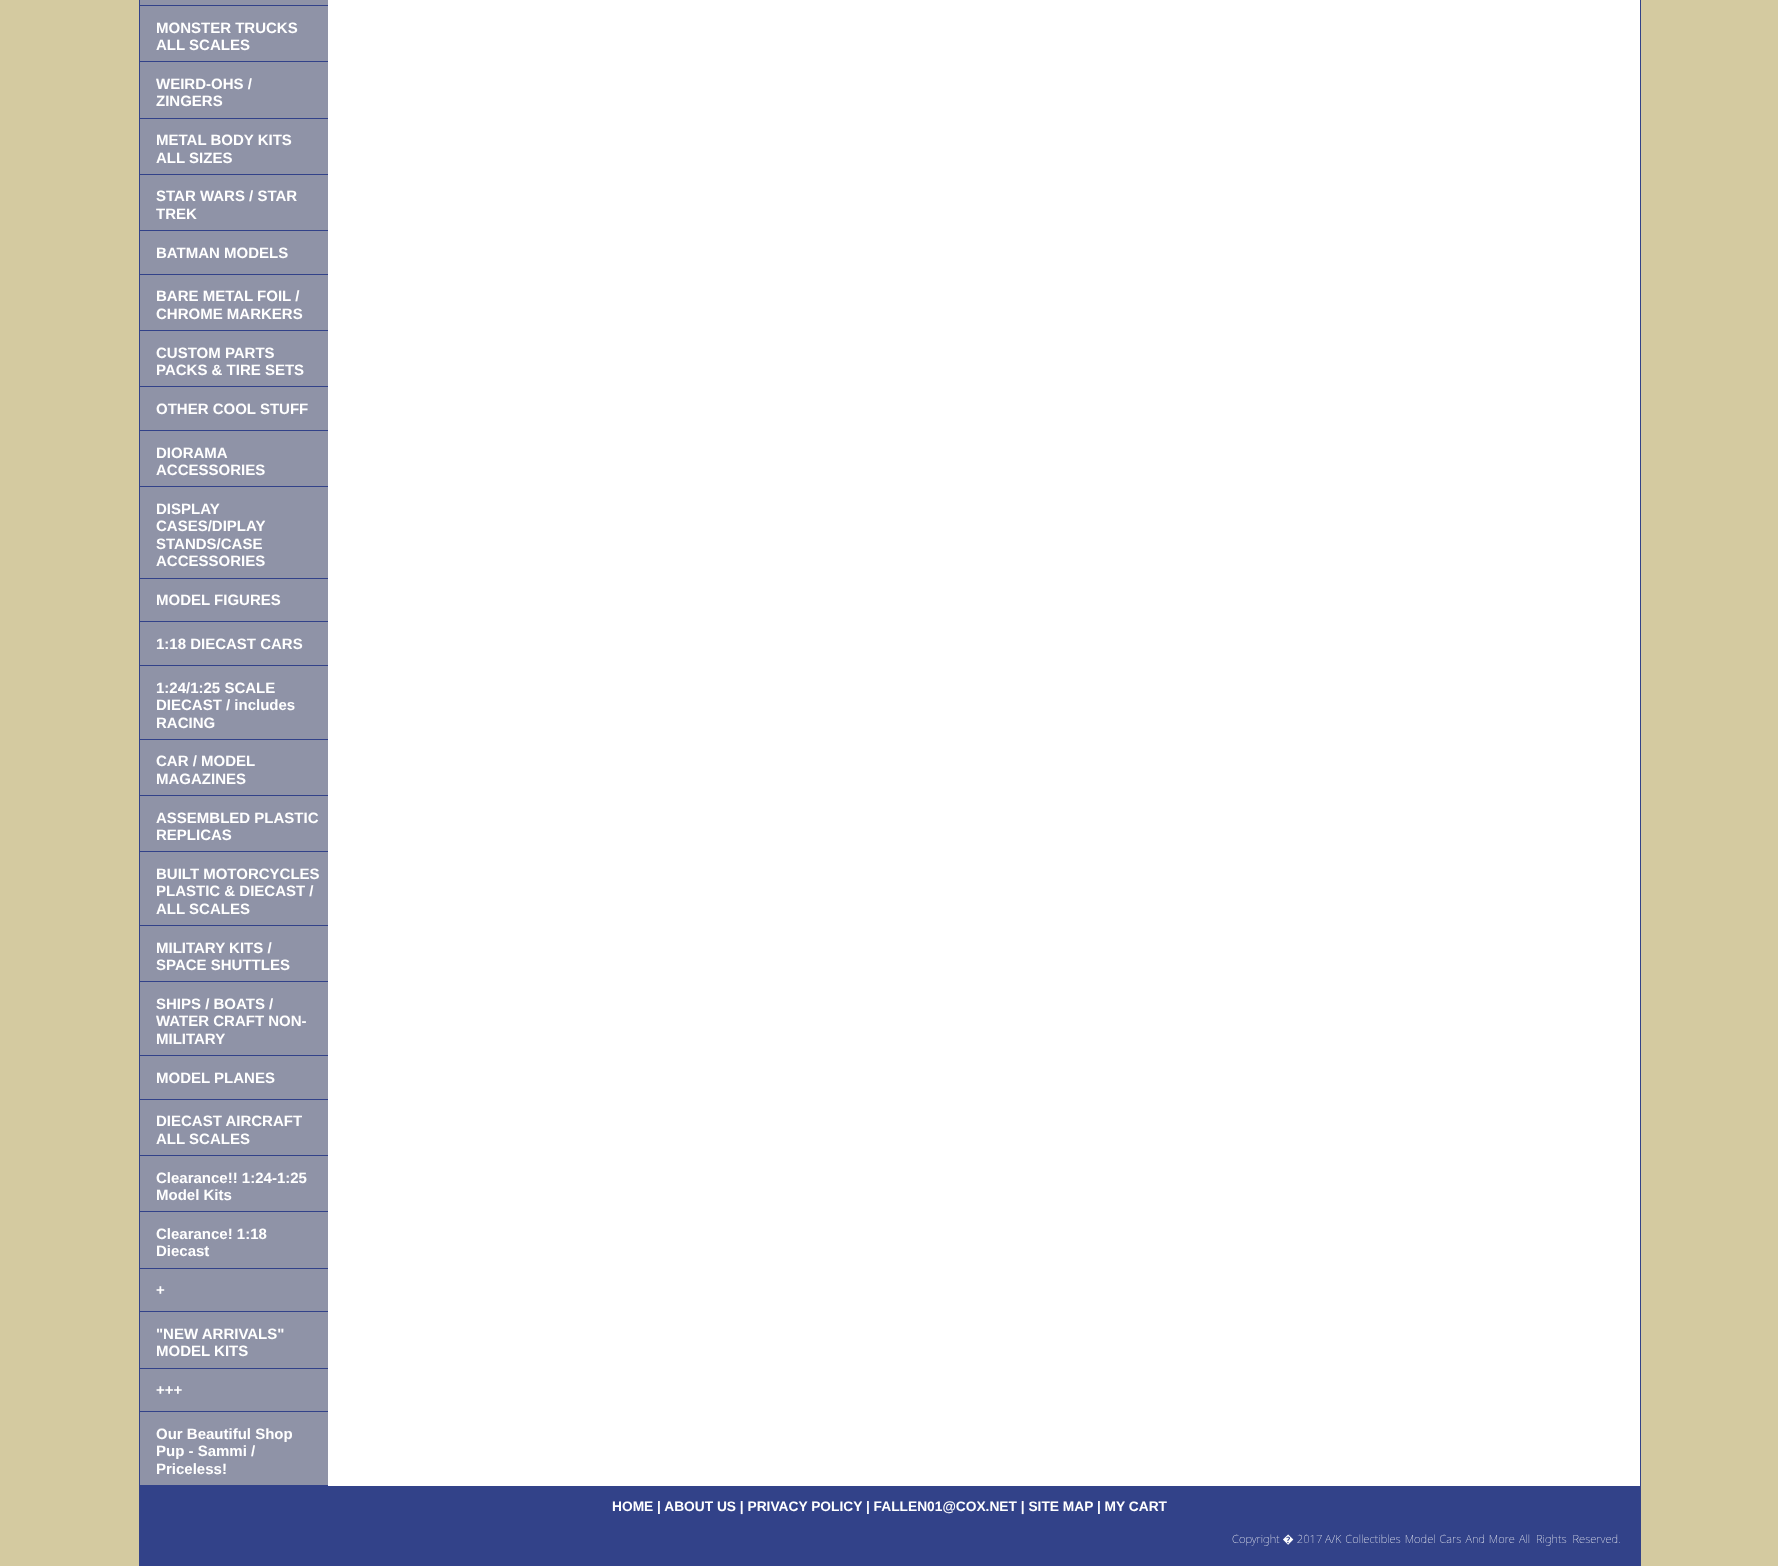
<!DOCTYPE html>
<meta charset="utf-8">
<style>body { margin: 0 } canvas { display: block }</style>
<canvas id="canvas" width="1778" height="1566"></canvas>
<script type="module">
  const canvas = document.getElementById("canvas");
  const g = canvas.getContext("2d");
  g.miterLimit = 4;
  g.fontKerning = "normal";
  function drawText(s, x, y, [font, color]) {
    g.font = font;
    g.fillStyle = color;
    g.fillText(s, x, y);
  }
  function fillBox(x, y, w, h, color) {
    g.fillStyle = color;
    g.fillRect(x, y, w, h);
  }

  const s1 = ["bold 15px Liberation Sans", "#FFFFFF"];
  const s2 = ["bold 13.75px Liberation Sans", "#FFFFFF"];
  const s3 = ["100 11.25px Noto Sans", "#FFFFFF"];

  fillBox(0, 0, 1778, 1566, "#D4CAA0");
  fillBox(328, 0, 1312, 1486, "#FFFFFF");
  g.strokeStyle = "#324289";
  g.strokeRect(139.5, -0.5, 1501, 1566);
  fillBox(140, 0, 188, 1485, "#8F93A7");
  fillBox(140, 5, 188, 1, "#324289");
  fillBox(140, 61, 188, 1, "#324289");
  drawText("MONSTER TRUCKS", 156, 33, s1);
  drawText("ALL SCALES", 156, 50, s1);
  fillBox(140, 118, 188, 1, "#324289");
  drawText("WEIRD-OHS /", 156, 89, s1);
  drawText("ZINGERS", 156, 106, s1);
  fillBox(140, 174, 188, 1, "#324289");
  drawText("METAL BODY KITS", 156, 145, s1);
  drawText("ALL SIZES", 156, 163, s1);
  fillBox(140, 230, 188, 1, "#324289");
  drawText("STAR WARS / STAR", 156, 201, s1);
  drawText("TREK", 156, 219, s1);
  fillBox(140, 274, 188, 1, "#324289");
  drawText("BATMAN MODELS", 156, 258, s1);
  fillBox(140, 330, 188, 1, "#324289");
  drawText("BARE METAL FOIL /", 156, 301, s1);
  drawText("CHROME MARKERS", 156, 319, s1);
  fillBox(140, 386, 188, 1, "#324289");
  drawText("CUSTOM PARTS", 156, 358, s1);
  drawText("PACKS & TIRE SETS", 156, 375, s1);
  fillBox(140, 430, 188, 1, "#324289");
  drawText("OTHER COOL STUFF", 156, 414, s1);
  fillBox(140, 486, 188, 1, "#324289");
  drawText("DIORAMA", 156, 458, s1);
  drawText("ACCESSORIES", 156, 475, s1);
  fillBox(140, 578, 188, 1, "#324289");
  drawText("DISPLAY", 156, 514, s1);
  drawText("CASES/DIPLAY", 156, 531, s1);
  drawText("STANDS/CASE", 156, 549, s1);
  drawText("ACCESSORIES", 156, 566, s1);
  fillBox(140, 621, 188, 1, "#324289");
  drawText("MODEL FIGURES", 156, 605, s1);
  fillBox(140, 665, 188, 1, "#324289");
  drawText("1:18 DIECAST CARS", 156, 649, s1);
  fillBox(140, 739, 188, 1, "#324289");
  drawText("1:24/1:25 SCALE", 156, 693, s1);
  drawText("DIECAST / includes", 156, 710, s1);
  drawText("RACING", 156, 728, s1);
  fillBox(140, 795, 188, 1, "#324289");
  drawText("CAR / MODEL", 156, 766, s1);
  drawText("MAGAZINES", 156, 784, s1);
  fillBox(140, 851, 188, 1, "#324289");
  drawText("ASSEMBLED PLASTIC", 156, 823, s1);
  drawText("REPLICAS", 156, 840, s1);
  fillBox(140, 925, 188, 1, "#324289");
  drawText("BUILT MOTORCYCLES", 156, 879, s1);
  drawText("PLASTIC & DIECAST /", 156, 896, s1);
  drawText("ALL SCALES", 156, 914, s1);
  fillBox(140, 981, 188, 1, "#324289");
  drawText("MILITARY KITS /", 156, 953, s1);
  drawText("SPACE SHUTTLES", 156, 970, s1);
  fillBox(140, 1055, 188, 1, "#324289");
  drawText("SHIPS / BOATS /", 156, 1009, s1);
  drawText("WATER CRAFT NON-", 156, 1026, s1);
  drawText("MILITARY", 156, 1044, s1);
  fillBox(140, 1099, 188, 1, "#324289");
  drawText("MODEL PLANES", 156, 1083, s1);
  fillBox(140, 1155, 188, 1, "#324289");
  drawText("DIECAST AIRCRAFT", 156, 1126, s1);
  drawText("ALL SCALES", 156, 1144, s1);
  fillBox(140, 1211, 188, 1, "#324289");
  drawText("Clearance!! 1:24-1:25", 156, 1183, s1);
  drawText("Model Kits", 156, 1200, s1);
  fillBox(140, 1268, 188, 1, "#324289");
  drawText("Clearance! 1:18", 156, 1239, s1);
  drawText("Diecast", 156, 1256, s1);
  fillBox(140, 1311, 188, 1, "#324289");
  drawText("+", 156, 1295, s1);
  fillBox(140, 1368, 188, 1, "#324289");
  drawText("\"NEW ARRIVALS\"", 156, 1339, s1);
  drawText("MODEL KITS", 156, 1356, s1);
  fillBox(140, 1411, 188, 1, "#324289");
  drawText("+++", 156, 1395, s1);
  fillBox(140, 1485, 188, 1, "#324289");
  drawText("Our Beautiful Shop", 156, 1439, s1);
  drawText("Pup - Sammi /", 156, 1456, s1);
  drawText("Priceless!", 156, 1474, s1);
  fillBox(140, 1486, 1500, 79, "#324289");
  drawText("HOME | ABOUT US | PRIVACY POLICY | FALLEN01@COX.NET | SITE MAP | MY CART", 612, 1511, s2);
  drawText("Copyright � 2017", 1232, 1543, s3);
  g.wordSpacing = "1px";
  drawText("A/K Collectibles Model Cars And More", 1325, 1543, s3);
  g.wordSpacing = "3px";
  drawText("All Rights Reserved.", 1519, 1543, s3);
</script>
